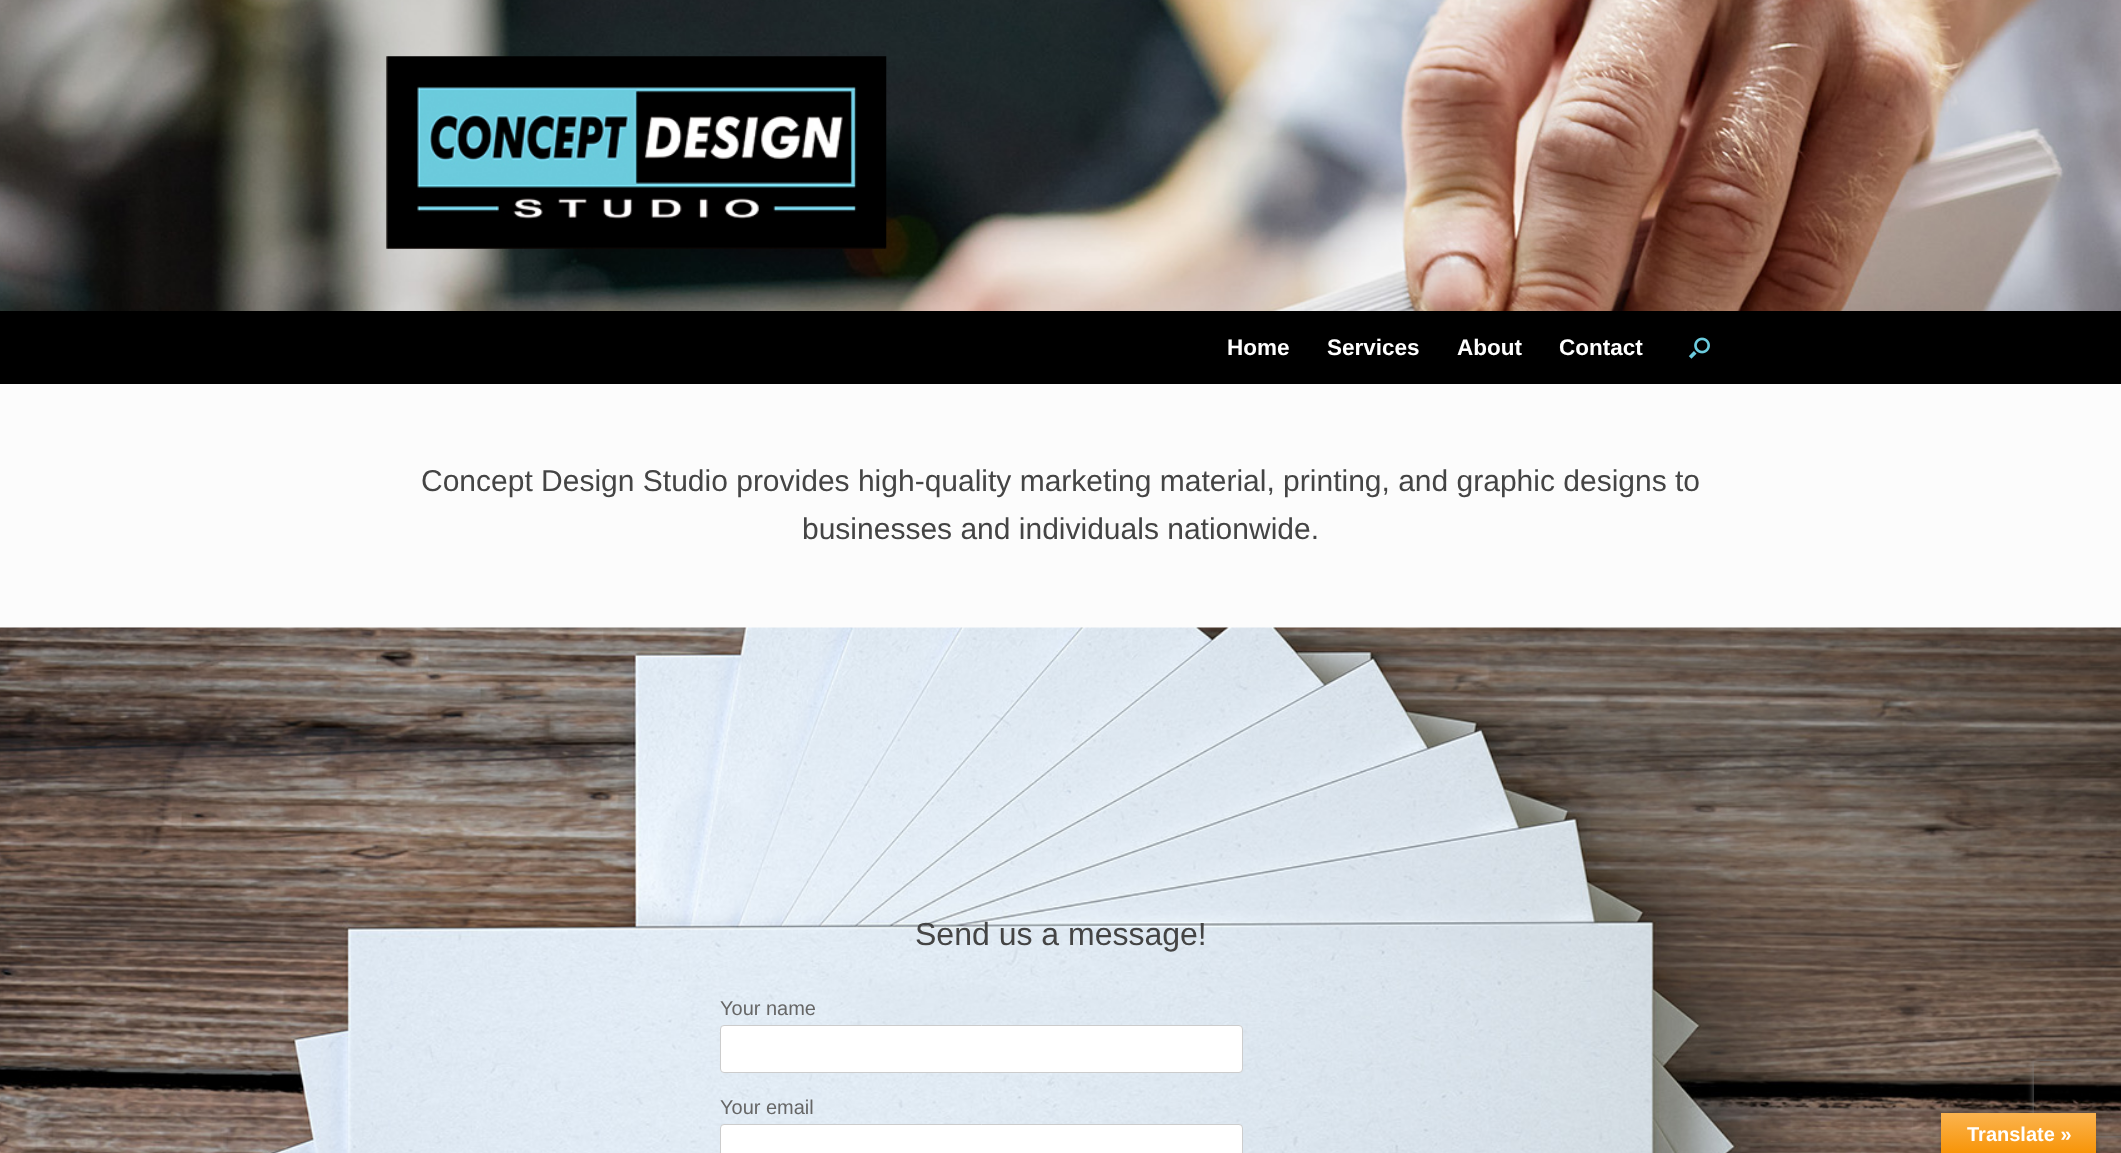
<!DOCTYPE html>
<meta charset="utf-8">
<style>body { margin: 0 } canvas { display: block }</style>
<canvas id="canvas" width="2121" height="1153"></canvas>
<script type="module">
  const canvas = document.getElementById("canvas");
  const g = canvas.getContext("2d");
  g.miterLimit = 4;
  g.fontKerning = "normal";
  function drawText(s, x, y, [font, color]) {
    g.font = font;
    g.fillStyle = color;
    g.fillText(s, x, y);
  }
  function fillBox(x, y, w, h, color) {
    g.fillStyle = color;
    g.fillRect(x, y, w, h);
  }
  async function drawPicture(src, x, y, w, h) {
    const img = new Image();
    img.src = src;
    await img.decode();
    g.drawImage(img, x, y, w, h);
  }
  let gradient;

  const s1 = ["bold 22.5px Liberation Sans", "#FFFFFF"];
  const s2 = ["30px Liberation Sans", "#444444"];
  const s3 = ["32px Liberation Sans", "#444444"];
  const s4 = ["20px Liberation Sans", "#666666"];
  const s5 = ["bold 20px Liberation Sans", "#FFFFFF"];

  fillBox(0, 0, 2121, 1153, "#FFFFFF");
  await drawPicture("pic1.png", 0, 0, 2121, 311);
  await drawPicture("pic2.png", 386, 56, 501, 193);
  fillBox(0, 311, 2121, 73, "#000000");
  drawText("Home", 1227, 355, s1);
  drawText("Services", 1327, 355, s1);
  drawText("About", 1457, 355, s1);
  drawText("Contact", 1559, 355, s1);
  await drawPicture("pic3.png", 1688, 337, 22, 22);
  fillBox(0, 384, 2121, 244, "#FCFCFC");
  drawText("Concept Design Studio provides high-quality marketing material, printing, and graphic designs to", 421, 491, s2);
  drawText("businesses and individuals nationwide.", 802, 539, s2);
  await drawPicture("pic4.png", 0, 627, 2121, 526);
  drawText("Send us a message!", 915, 945, s3);
  drawText("Your name", 720, 1015, s4);
  g.fillStyle = "#FFFFFF";
  g.beginPath();
  g.roundRect(720.5, 1025.5, 522, 47, 3.5);
  g.fill();
  g.strokeStyle = "#CCCCCC";
  g.stroke();
  drawText("Your email", 720, 1114, s4);
  g.fillStyle = "#FFFFFF";
  g.beginPath();
  g.roundRect(720.5, 1124.5, 522, 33, 3.5);
  g.fill();
  g.stroke();
  g.fillStyle = "rgba(0, 0, 0, 0.3)";
  g.filter = "blur(5.5px)";
  g.beginPath();
  g.rect(1941, 1113, 155, 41);
  g.fill();
  g.filter = "none";
  g.save();
  g.beginPath();
  g.moveTo(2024, 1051);
  g.lineTo(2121, 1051);
  g.lineTo(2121, 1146);
  g.lineTo(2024, 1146);
  g.closePath();
  g.moveTo(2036.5, 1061);
  g.lineTo(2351.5, 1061);
  g.bezierCurveTo(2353, 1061, 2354, 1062, 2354, 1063.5);
  g.lineTo(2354, 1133.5);
  g.bezierCurveTo(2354, 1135, 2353, 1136, 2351.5, 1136);
  g.lineTo(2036.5, 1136);
  g.bezierCurveTo(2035, 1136, 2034, 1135, 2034, 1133.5);
  g.lineTo(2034, 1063.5);
  g.bezierCurveTo(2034, 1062, 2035, 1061, 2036.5, 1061);
  g.closePath();
  g.clip("evenodd");
  g.fillStyle = "#808080";
  g.filter = "blur(3px)";
  g.beginPath();
  g.roundRect(2034, 1061, 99, 75, 2.5);
  g.fill();
  g.filter = "none";
  g.restore();
  gradient = g.createLinearGradient(2019, 1113, 2019, 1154);
  gradient.addColorStop(0, "#FBB450");
  gradient.addColorStop(1, "#F89406");
  g.fillStyle = gradient;
  g.fillRect(1941, 1113, 155, 40);
  drawText("Translate »", 1967, 1141, s5);
</script>
